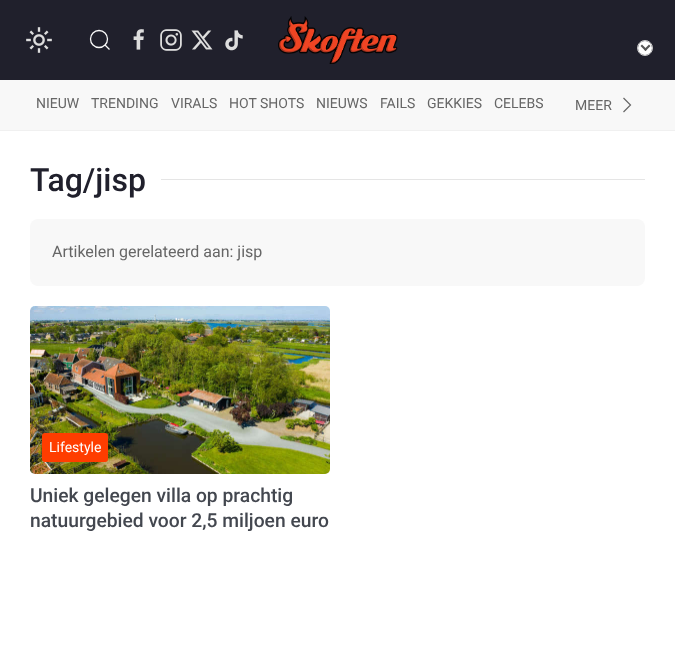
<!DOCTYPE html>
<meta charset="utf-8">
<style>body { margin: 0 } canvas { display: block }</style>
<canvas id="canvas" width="675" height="658"></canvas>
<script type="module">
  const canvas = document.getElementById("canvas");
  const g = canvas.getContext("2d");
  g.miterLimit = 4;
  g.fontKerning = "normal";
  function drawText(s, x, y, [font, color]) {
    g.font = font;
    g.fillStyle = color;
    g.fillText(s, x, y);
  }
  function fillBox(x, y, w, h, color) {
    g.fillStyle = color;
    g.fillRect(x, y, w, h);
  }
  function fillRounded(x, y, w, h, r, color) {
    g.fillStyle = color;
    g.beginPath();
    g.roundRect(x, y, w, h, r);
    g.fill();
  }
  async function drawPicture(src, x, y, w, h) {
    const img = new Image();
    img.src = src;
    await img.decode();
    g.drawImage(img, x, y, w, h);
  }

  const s1 = ["14px Roboto", "#666666"];
  const s2 = ["500 32px Roboto", "#20202C"];
  const s3 = ["16px Roboto", "#666666"];
  const s4 = ["14px Roboto", "#FFFFFF"];
  const s5 = ["500 19.25px Roboto", "#43474F"];

  fillBox(0, 0, 675, 658, "#FFFFFF");
  fillBox(0, 0, 675, 80, "#20202C");
  await drawPicture("pic1.png", 26, 27, 26, 26);
  g.beginPath();
  g.arc(99, 39, 8.5, 0, Math.PI * 2);
  g.strokeStyle = "#FAFAFA";
  g.lineWidth = 1.3;
  g.stroke();
  g.beginPath();
  g.moveTo(105, 45);
  g.lineTo(109.5, 49.5);
  g.closePath();
  g.stroke();
  await drawPicture("pic2.png", 133, 29, 11, 21);
  await drawPicture("pic3.png", 160, 29, 22, 22);
  await drawPicture("pic4.png", 191, 30, 22, 20);
  await drawPicture("pic5.png", 225, 30, 18, 21);
  await drawPicture("pic6.png", 278, 16, 120, 48);
  g.beginPath();
  g.arc(645, 48, 7.5, 0, Math.PI * 2);
  g.strokeStyle = "#CCCCCC";
  g.lineWidth = 1;
  g.stroke();
  g.fillStyle = "#FFFFFF";
  g.beginPath();
  g.arc(645, 48, 7, 0, Math.PI * 2);
  g.fill();
  g.fillStyle = "#555555";
  g.beginPath();
  g.moveTo(649, 44.5);
  g.lineTo(650.5, 46);
  g.lineTo(645.5, 51);
  g.lineTo(644, 49.5);
  g.closePath();
  g.fill();
  g.beginPath();
  g.moveTo(642, 44.5);
  g.lineTo(647, 49.5);
  g.lineTo(645.5, 51);
  g.lineTo(640.5, 46);
  g.closePath();
  g.fill();
  fillBox(0, 80, 675, 50, "#F8F8F8");
  fillBox(0, 130, 675, 1, "#F0F0F0");
  drawText("NIEUW", 36, 108, s1);
  drawText("TRENDING", 91, 108, s1);
  drawText("VIRALS", 171, 108, s1);
  drawText("HOT SHOTS", 229, 108, s1);
  drawText("NIEUWS", 316, 108, s1);
  drawText("FAILS", 380, 108, s1);
  drawText("GEKKIES", 427, 108, s1);
  drawText("CELEBS", 494, 108, s1);
  drawText("MEER", 575, 110, s1);
  g.beginPath();
  g.moveTo(623.5, 98);
  g.lineTo(630.5, 105);
  g.lineTo(623.5, 112);
  g.strokeStyle = "#666666";
  g.lineWidth = 1.2;
  g.stroke();
  drawText("Tag/jisp", 30, 191, s2);
  fillBox(161, 179, 484, 1, "#E5E5E5");
  fillRounded(30, 219, 615, 67, 8, "#F8F8F8");
  drawText("Artikelen gerelateerd aan: jisp", 52, 257, s3);
  await drawPicture("pic7.png", 30, 306, 300, 168);
  fillRounded(42, 433, 66, 29, 3, "#FF3D00");
  drawText("Lifestyle", 49, 452, s4);
  drawText("Uniek gelegen villa op prachtig", 30, 502, s5);
  drawText("natuurgebied voor 2,5 miljoen euro", 30, 527, s5);
</script>
